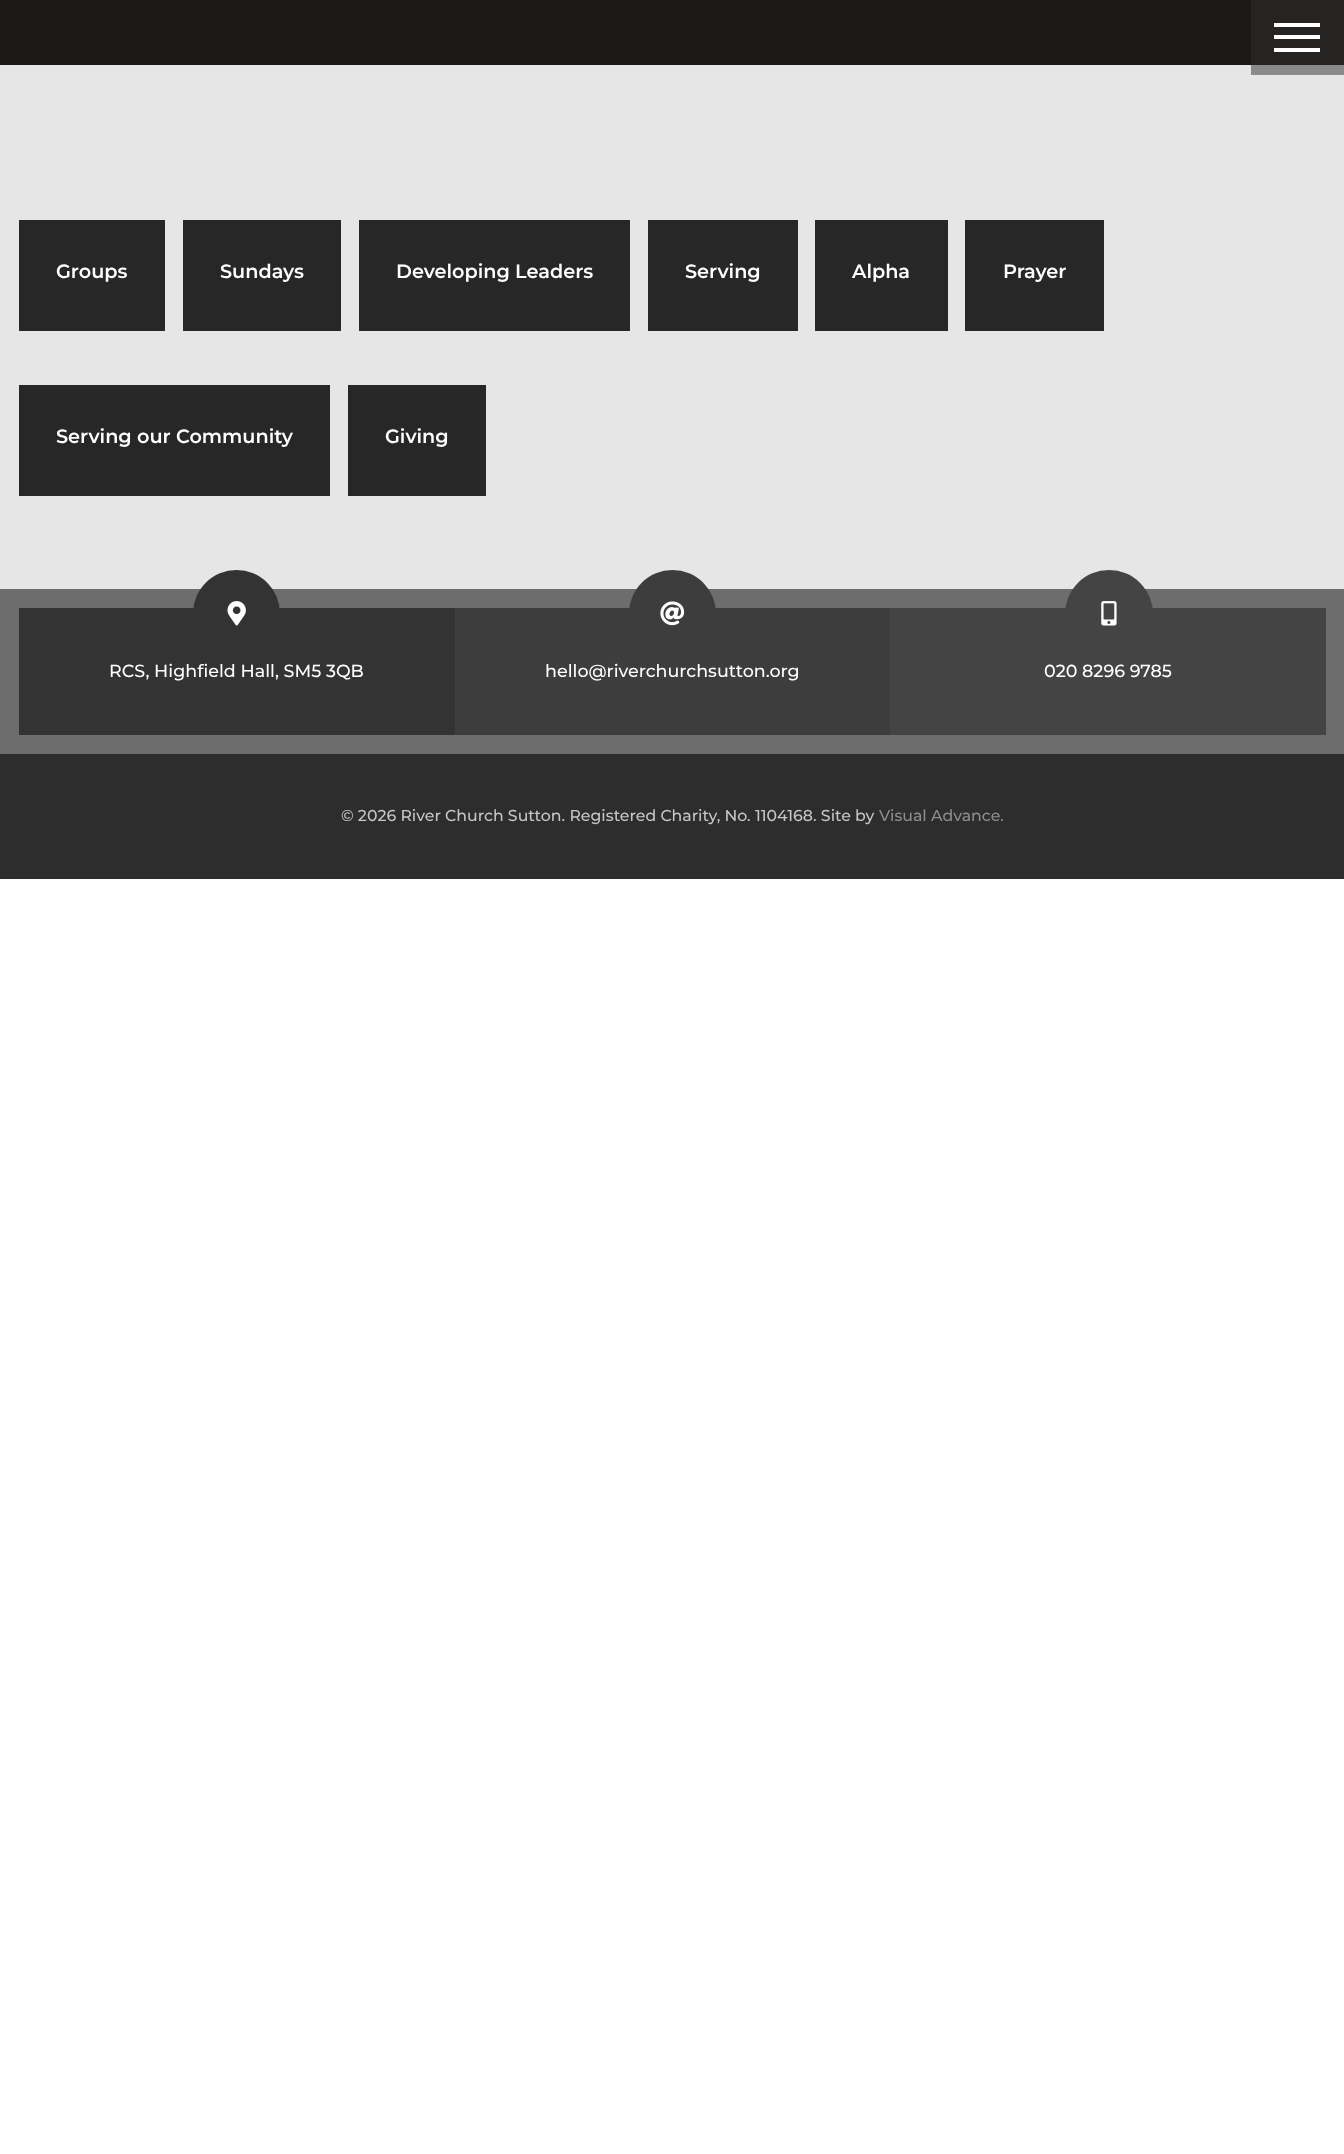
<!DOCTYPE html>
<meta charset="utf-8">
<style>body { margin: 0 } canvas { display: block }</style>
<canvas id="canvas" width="1344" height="2154"></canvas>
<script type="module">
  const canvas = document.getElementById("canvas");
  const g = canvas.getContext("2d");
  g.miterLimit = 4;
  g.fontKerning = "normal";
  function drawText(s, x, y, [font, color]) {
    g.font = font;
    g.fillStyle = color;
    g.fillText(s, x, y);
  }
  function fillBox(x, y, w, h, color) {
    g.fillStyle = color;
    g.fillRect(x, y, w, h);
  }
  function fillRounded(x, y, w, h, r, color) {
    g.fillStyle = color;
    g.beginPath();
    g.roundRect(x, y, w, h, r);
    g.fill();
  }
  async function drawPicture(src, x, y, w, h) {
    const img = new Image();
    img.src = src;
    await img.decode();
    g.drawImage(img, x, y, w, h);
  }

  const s1 = ["600 19.25px Montserrat", "#FFFFFF"];
  const s2 = ["500 17.5px Montserrat", "#FFFFFF"];
  const s3 = ["500 15.75px Montserrat", "#C6C6C6"];
  const s4 = ["500 15.75px Montserrat", "#8D8D8D"];

  fillBox(0, 0, 1344, 2154, "#FFFFFF");
  fillBox(0, 0, 1251, 65, "#1C1A17");
  fillBox(1251, 0, 93, 65, "#252422");
  fillBox(1274, 35, 46, 4, "#FFFFFF");
  fillBox(1274, 23, 46, 4, "#FFFFFF");
  fillBox(1274, 48, 46, 4, "#FFFFFF");
  fillBox(0, 65, 1344, 524, "#E6E6E6");
  fillBox(1251, 65, 93, 10, "#8A8A8A");
  fillBox(19, 220, 146, 111, "#282727");
  drawText("Groups", 56, 278, s1);
  fillBox(183, 220, 158, 111, "#282727");
  drawText("Sundays", 220, 278, s1);
  fillBox(359, 220, 271, 111, "#282727");
  drawText("Developing Leaders", 396, 278, s1);
  fillBox(648, 220, 150, 111, "#282727");
  drawText("Serving", 685, 278, s1);
  fillBox(815, 220, 133, 111, "#282727");
  drawText("Alpha", 852, 278, s1);
  fillBox(965, 220, 139, 111, "#282727");
  drawText("Prayer", 1003, 278, s1);
  fillBox(19, 385, 311, 111, "#282727");
  drawText("Serving our Community", 56, 443, s1);
  fillBox(348, 385, 138, 111, "#282727");
  drawText("Giving", 385, 443, s1);
  fillBox(0, 589, 1344, 165, "#6D6D6D");
  fillBox(19, 608, 436, 127, "#333333");
  fillRounded(193, 570, 87, 88, 43.5, "#333333");
  await drawPicture("pic1.png", 227, 601, 19, 25);
  drawText("RCS, Highfield Hall, SM5 3QB", 109, 677, s2);
  fillBox(455, 608, 435, 127, "#3D3D3D");
  fillRounded(629, 570, 87, 88, 43.5, "#3D3D3D");
  await drawPicture("pic2.png", 660, 601, 25, 25);
  drawText("hello@riverchurchsutton.org", 545, 677, s2);
  fillBox(890, 608, 436, 127, "#444444");
  g.beginPath();
  g.arc(1109, 614, 44, 0, Math.PI * 2);
  g.fill();
  await drawPicture("pic3.png", 1101, 601, 16, 25);
  drawText("020 8296 9785", 1044, 677, s2);
  fillBox(0, 754, 1344, 125, "#2D2D2D");
  drawText("© 2026 River Church Sutton. Registered Charity, No. 1104168. Site by", 341, 821, s3);
  drawText("Visual Advance.", 879, 821, s4);
</script>
